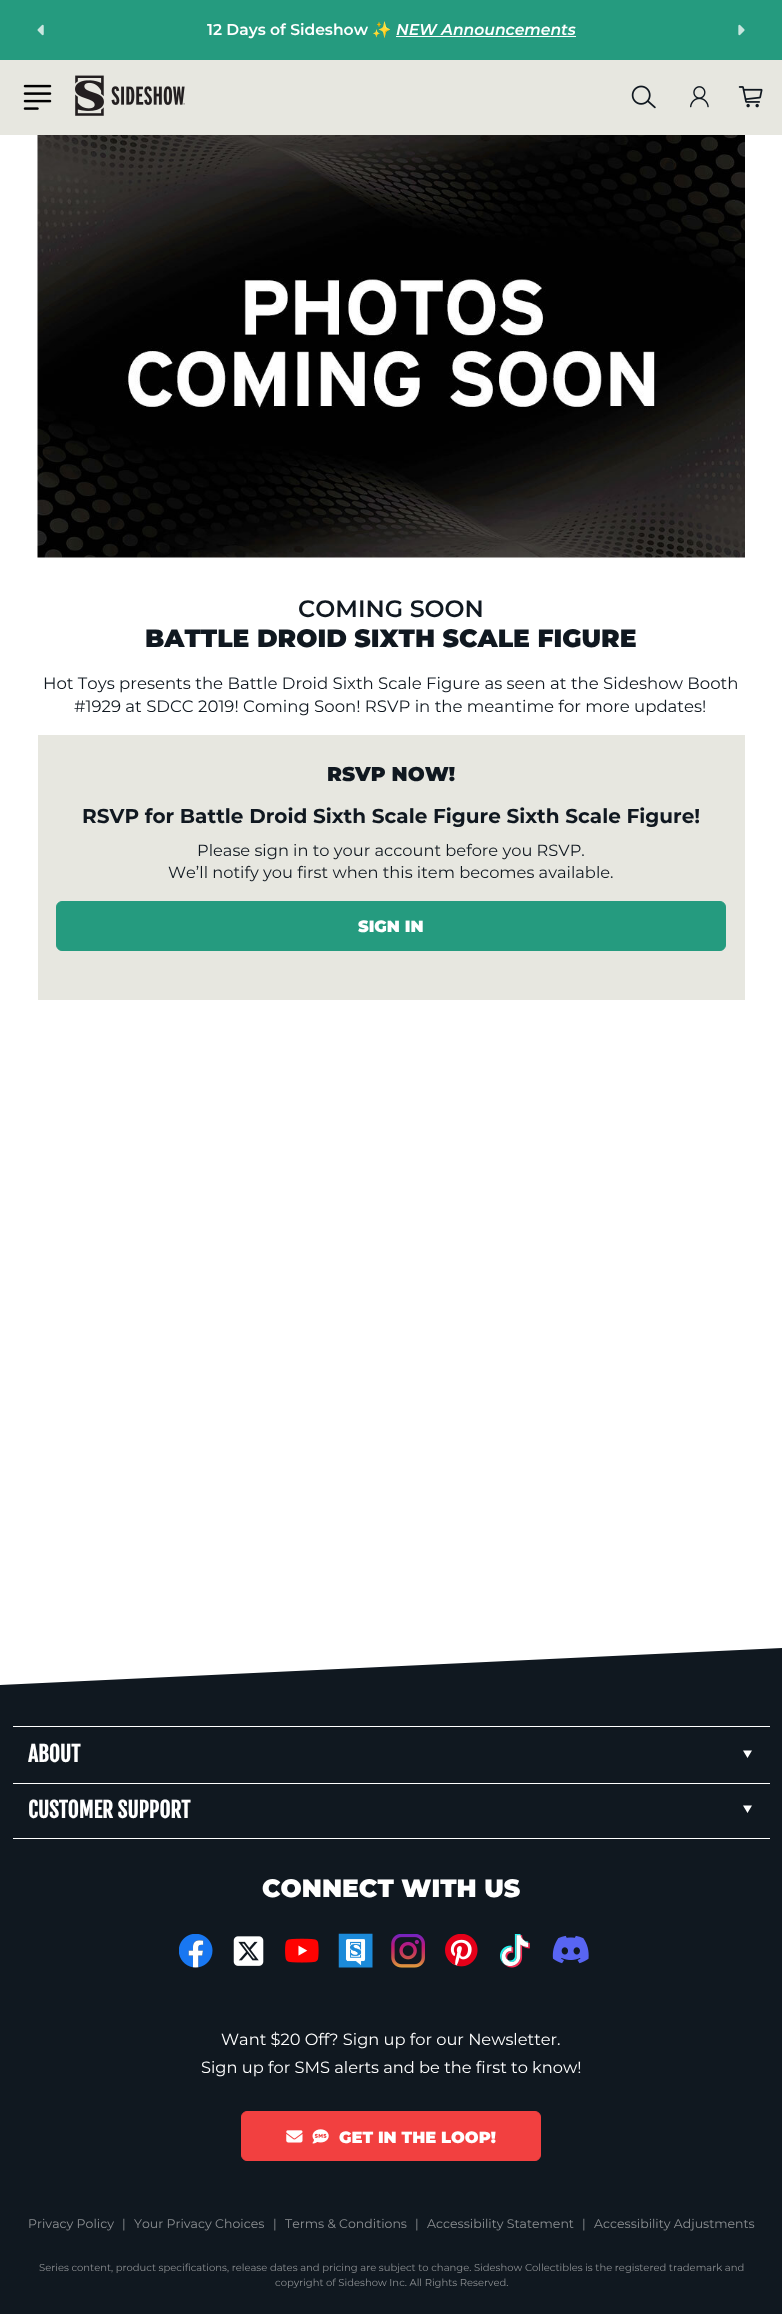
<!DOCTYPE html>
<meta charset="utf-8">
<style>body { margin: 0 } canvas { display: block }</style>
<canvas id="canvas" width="782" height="2314"></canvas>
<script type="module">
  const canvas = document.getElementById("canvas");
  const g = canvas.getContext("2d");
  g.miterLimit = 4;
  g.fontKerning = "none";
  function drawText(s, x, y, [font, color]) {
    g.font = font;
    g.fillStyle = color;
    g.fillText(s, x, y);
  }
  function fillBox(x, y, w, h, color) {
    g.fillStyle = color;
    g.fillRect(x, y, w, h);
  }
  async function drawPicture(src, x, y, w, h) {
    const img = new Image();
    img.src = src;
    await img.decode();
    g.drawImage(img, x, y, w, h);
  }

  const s1 = ["100 15.6px Montserrat", "#FFFFFF"];
  const s2 = ["bold 15.6px Noto Color Emoji", "#FFFFFF"];
  const s3 = ["italic 100 15.6px Montserrat", "#FFFFFF"];
  const s4 = ["100 23.75px Montserrat", "#101820"];
  const s5 = ["100 25px 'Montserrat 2'", "#101820"];
  const s6 = ["100 16.55px 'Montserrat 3'", "#101820"];
  const s7 = ["100 20px 'Montserrat 2'", "#101820"];
  const s8 = ["100 20px 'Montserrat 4'", "#101820"];
  const s9 = ["100 16.25px 'Montserrat 3'", "#101820"];
  const s10 = ["100 16.25px 'Montserrat 2'", "#FFFFFF"];
  const s11 = ["bold 21.25px Fjalla One", "#FFFFFF"];
  const s12 = ["100 25px 'Montserrat 2'", "#FFFFFF"];
  const s13 = ["100 16.25px 'Montserrat 3'", "#FFFFFF"];
  const s14 = ["100 12.5px 'Montserrat 3'", "#8D9093"];
  const s15 = ["100 10px 'Montserrat 3'", "#8D9093"];

  fillBox(0, 0, 782, 2314, "#FFFFFF");
  fillBox(0, 0, 782, 60, "#259B7F");
  await drawPicture("pic1.png", 37, 24, 7, 12);
  drawText("12 Days of Sideshow", 207, 35, s1);
  drawText("✨", 372, 35, s2);
  drawText("NEW Announcements", 396, 35, s3);
  fillBox(396, 36, 180, 1, "#FFFFFF");
  await drawPicture("pic2.png", 738, 24, 7, 12);
  fillBox(0, 60, 782, 75, "#E7E7E0");
  await drawPicture("pic3.png", 23, 84, 29, 26);
  await drawPicture("pic4.png", 75, 75, 110, 41);
  await drawPicture("pic5.png", 631, 85, 25, 24);
  await drawPicture("pic6.png", 690, 86, 19, 22);
  await drawPicture("pic7.png", 738, 86, 25, 22);
  await drawPicture("pic8.png", 37, 135, 708, 423);
  drawText("COMING SOON", 298, 617, s4);
  drawText("BATTLE DROID SIXTH SCALE FIGURE", 145, 647, s5);
  drawText("Hot Toys presents the Battle Droid Sixth Scale Figure as seen at the Sideshow Booth", 43, 689, s6);
  drawText("#1929 at SDCC 2019! Coming Soon! RSVP in the meantime for more updates!", 74, 712, s6);
  fillBox(38, 735, 707, 265, "#E7E7E0");
  drawText("RSVP NOW!", 327, 781, s7);
  drawText("RSVP for Battle Droid Sixth Scale Figure Sixth Scale Figure!", 82, 823, s8);
  drawText("Please sign in to your account before you RSVP.", 197, 856, s9);
  drawText("We’ll notify you first when this item becomes available.", 168, 878, s9);
  g.fillStyle = "#259B7F";
  g.beginPath();
  g.roundRect(56.5, 901.5, 669, 49, 5.5);
  g.fill();
  g.strokeStyle = "#259B7F";
  g.stroke();
  drawText("SIGN IN", 358, 932, s10);
  g.fillStyle = "#101820";
  g.beginPath();
  g.moveTo(0, 1685);
  g.lineTo(782, 1648);
  g.lineTo(782, 2134);
  g.lineTo(0, 2171);
  g.closePath();
  g.fill();
  fillBox(13, 1726, 757, 1, "#FFFFFF");
  g.beginPath();
  g.moveTo(747.5, 1758);
  g.lineTo(743, 1750.5);
  g.lineTo(752, 1750.5);
  g.closePath();
  g.moveTo(747.5, 1813);
  g.lineTo(743, 1805.5);
  g.lineTo(752, 1805.5);
  g.closePath();
  g.fill();
  fillBox(13, 1783, 757, 1, "#FFFFFF");
  drawText("ABOUT", 28, 1762, s11);
  fillBox(13, 1838, 757, 1, "#FFFFFF");
  drawText("CUSTOMER SUPPORT", 28, 1818, s11);
  drawText("CONNECT WITH US", 262, 1897, s12);
  await drawPicture("pic9.png", 179, 1934, 34, 34);
  await drawPicture("pic10.png", 233, 1936, 31, 30);
  await drawPicture("pic11.png", 285, 1938, 34, 25);
  await drawPicture("pic12.png", 338, 1933, 35, 35);
  await drawPicture("pic13.png", 391, 1934, 34, 34);
  await drawPicture("pic14.png", 445, 1934, 33, 33);
  await drawPicture("pic15.png", 500, 1934, 30, 34);
  await drawPicture("pic16.png", 552, 1935, 37, 29);
  drawText("Want $20 Off? Sign up for our Newsletter.", 221, 2045, s13);
  drawText("Sign up for SMS alerts and be the first to know!", 201, 2073, s13);
  fillBox(0, 2134, 782, 180, "#101820");
  g.fillStyle = "#F24040";
  g.beginPath();
  g.roundRect(241.5, 2111.5, 299, 49, 5.5);
  g.fill();
  g.strokeStyle = "#F24040";
  g.stroke();
  await drawPicture("pic17.png", 286, 2130, 17, 13);
  await drawPicture("pic18.png", 312, 2129, 17, 15);
  drawText("GET IN THE LOOP!", 339, 2143, s10);
  drawText("Privacy Policy", 28, 2228, s14);
  drawText("|", 122, 2228, s14);
  drawText("Your Privacy Choices", 134, 2228, s14);
  drawText("|", 273, 2228, s14);
  drawText("Terms & Conditions", 285, 2228, s14);
  drawText("|", 415, 2228, s14);
  drawText("Accessibility Statement", 427, 2228, s14);
  drawText("|", 582, 2228, s14);
  drawText("Accessibility Adjustments", 594, 2228, s14);
  drawText("Series content, product specifications, release dates and pricing are subject to change. Sideshow Collectibles is the registered trademark and", 39, 2271, s15);
  drawText("copyright of Sideshow Inc. All Rights Reserved.", 275, 2286, s15);
</script>
